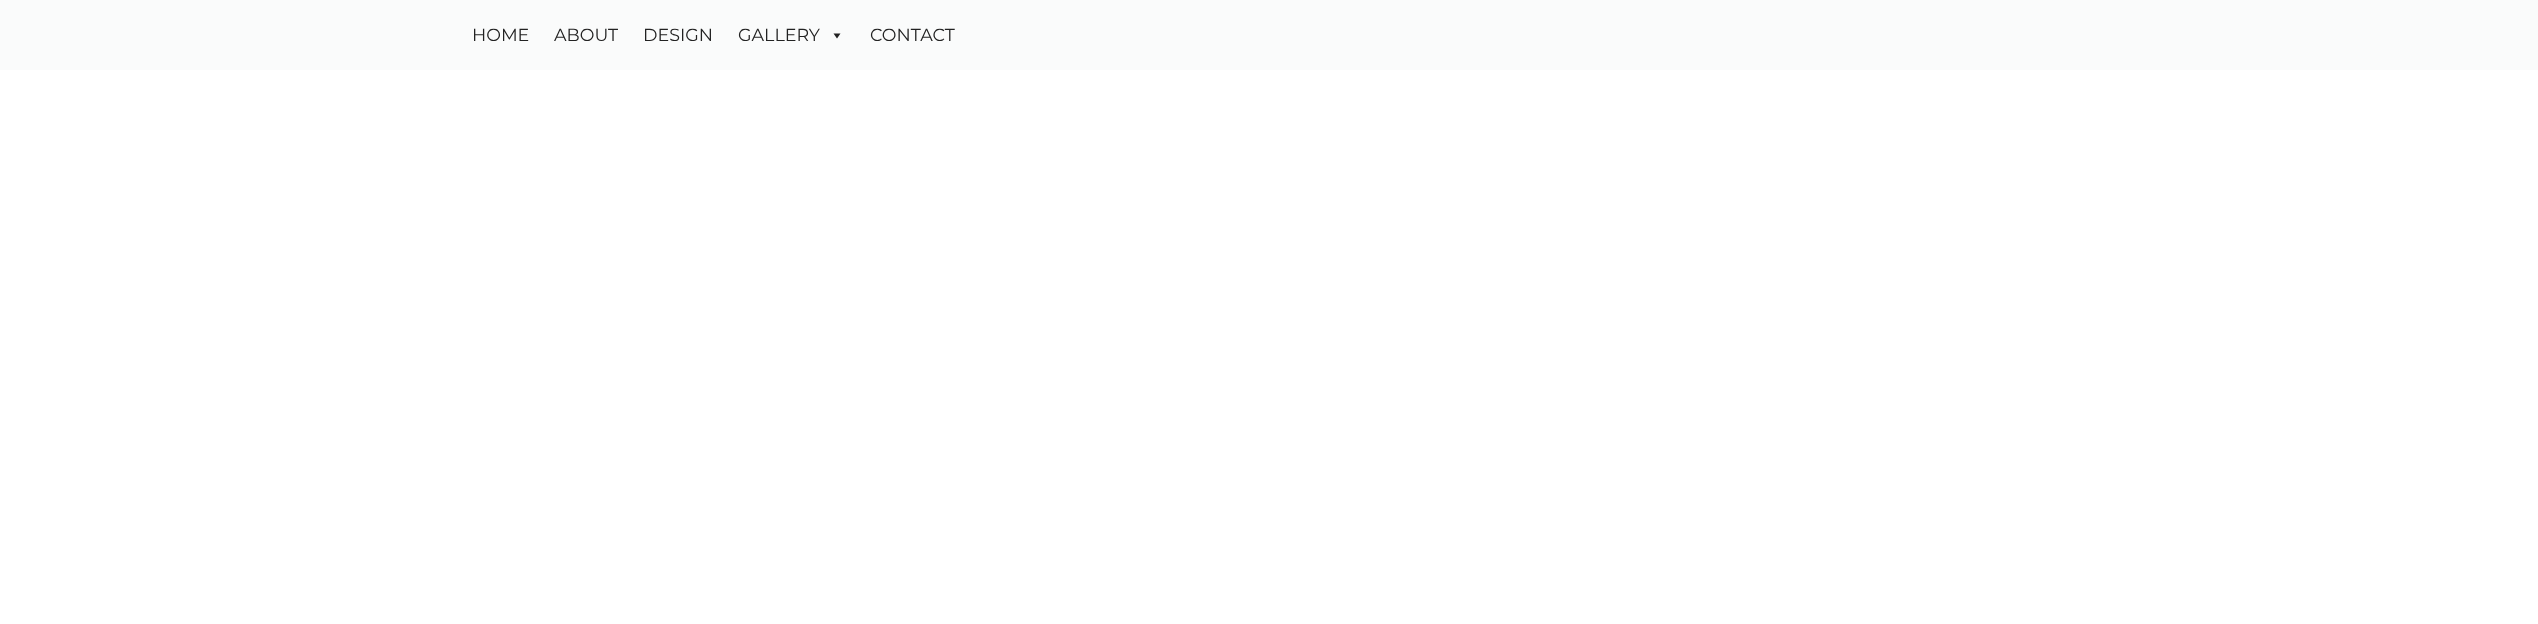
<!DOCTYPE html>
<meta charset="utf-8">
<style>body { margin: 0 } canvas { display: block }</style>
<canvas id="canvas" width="2538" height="624"></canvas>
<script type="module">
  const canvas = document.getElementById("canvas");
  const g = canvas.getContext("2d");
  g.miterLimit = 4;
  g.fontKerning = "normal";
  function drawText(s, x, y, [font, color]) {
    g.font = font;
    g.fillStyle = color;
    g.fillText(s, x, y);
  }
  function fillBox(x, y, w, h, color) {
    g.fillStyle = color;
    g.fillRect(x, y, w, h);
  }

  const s1 = ["17.5px Montserrat", "#222222"];

  fillBox(0, 0, 2538, 624, "#FFFFFF");
  fillBox(0, 0, 2538, 70, "#FAFBFB");
  drawText("HOME", 472, 41, s1);
  drawText("ABOUT", 554, 41, s1);
  drawText("DESIGN", 643, 41, s1);
  drawText("GALLERY", 738, 41, s1);
  g.beginPath();
  g.moveTo(840.5, 33.5);
  g.lineTo(837, 38.5);
  g.lineTo(833.5, 33.5);
  g.closePath();
  g.fill();
  drawText("CONTACT", 870, 41, s1);
</script>
